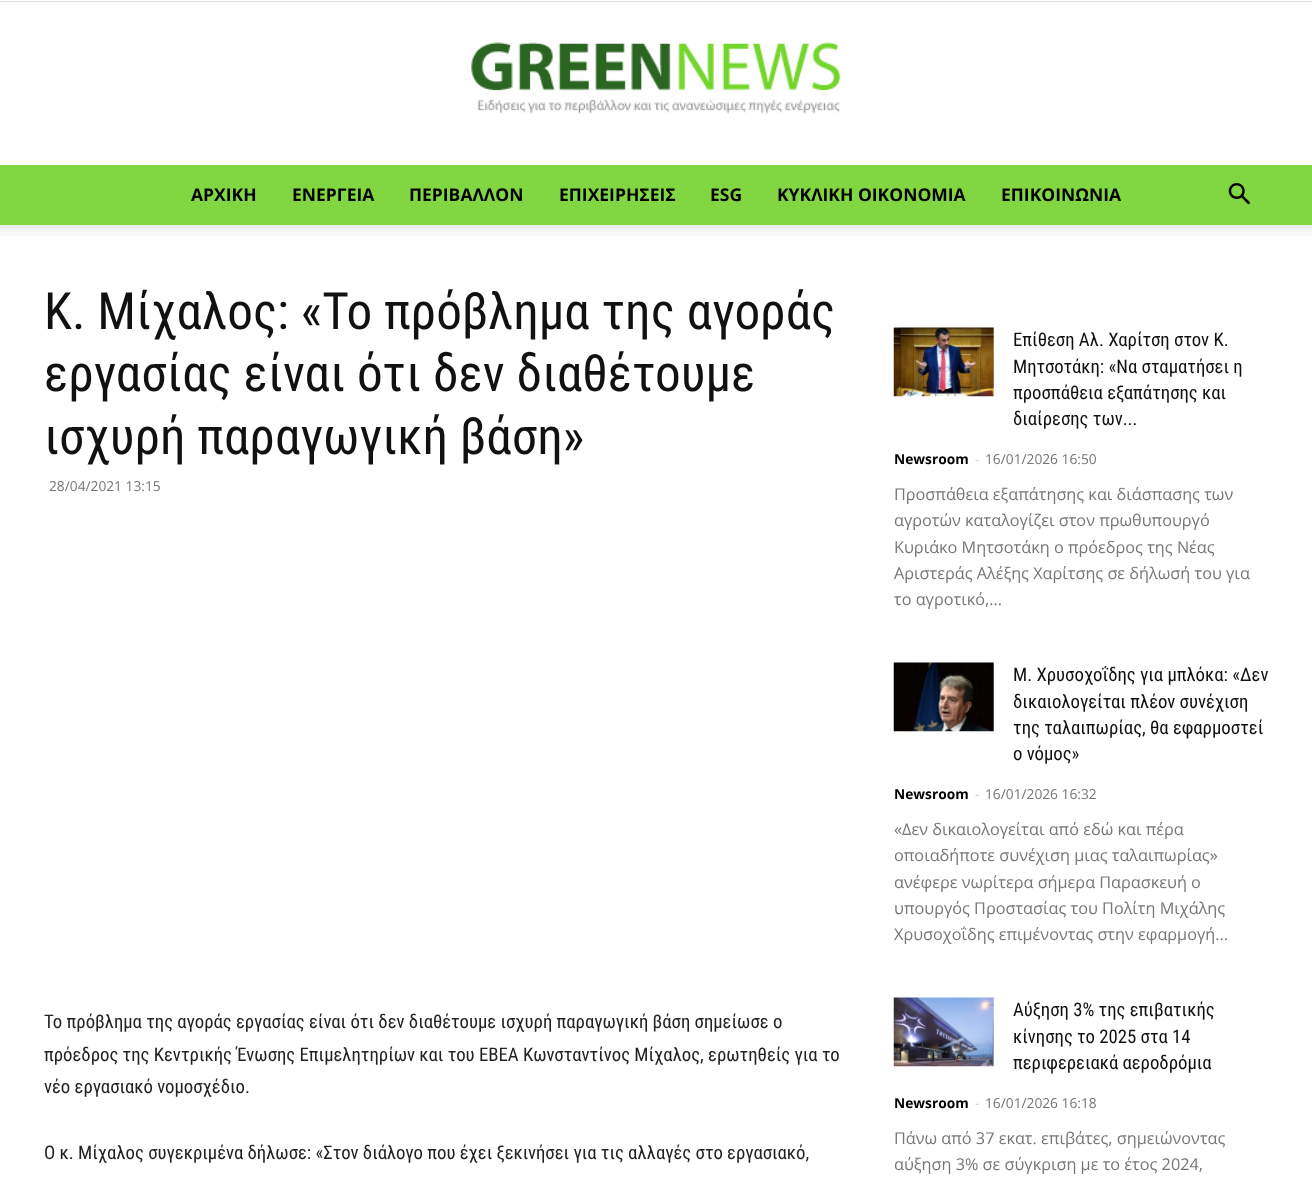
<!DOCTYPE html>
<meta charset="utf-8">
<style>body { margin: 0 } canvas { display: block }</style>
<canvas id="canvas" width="1312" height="1180"></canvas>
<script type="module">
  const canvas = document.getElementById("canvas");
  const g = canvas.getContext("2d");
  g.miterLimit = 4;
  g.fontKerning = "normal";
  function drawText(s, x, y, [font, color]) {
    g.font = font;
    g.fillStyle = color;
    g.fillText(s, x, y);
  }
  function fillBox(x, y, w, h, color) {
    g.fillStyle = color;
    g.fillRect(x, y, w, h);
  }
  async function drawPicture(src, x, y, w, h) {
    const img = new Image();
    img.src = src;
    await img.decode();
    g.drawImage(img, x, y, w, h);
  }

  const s1 = ["bold 17.5px Open Sans", "#000000"];
  const s2 = ["51.25px Roboto Condensed", "#111111"];
  const s3 = ["13.75px Open Sans", "#767676"];
  const s4 = ["18.75px Roboto Condensed", "#222222"];
  const s5 = ["18.75px Roboto Condensed", "#111111"];
  const s6 = ["bold 13.75px Open Sans", "#000000"];
  const s7 = ["13.75px Open Sans", "#CCCCCC"];
  const s8 = ["16.25px Open Sans", "#767676"];

  fillBox(0, 0, 1312, 1180, "#FFFFFF");
  fillBox(0, 1, 1312, 1, "#E0E0E0");
  await drawPicture("pic1.png", 471, 42, 370, 72);
  fillBox(0, 165, 1312, 60, "#81D742");
  drawText("ΑΡΧΙΚΗ", 191, 201, s1);
  drawText("ΕΝΕΡΓΕΙΑ", 292, 201, s1);
  drawText("ΠΕΡΙΒΑΛΛΟΝ", 409, 201, s1);
  drawText("ΕΠΙΧΕΙΡΗΣΕΙΣ", 559, 201, s1);
  drawText("ESG", 710, 201, s1);
  drawText("ΚΥΚΛΙΚΗ ΟΙΚΟΝΟΜΙΑ", 777, 201, s1);
  drawText("ΕΠΙΚΟΙΝΩΝΙΑ", 1001, 201, s1);
  await drawPicture("pic2.png", 1228, 183, 22, 22);
  await drawPicture("pic3.png", 0, 225, 1312, 11);
  drawText("Κ. Μίχαλος: «Το πρόβλημα της αγοράς", 44, 329, s2);
  drawText("εργασίας είναι ότι δεν διαθέτουμε", 44, 391, s2);
  drawText("ισχυρή παραγωγική βάση»", 44, 454, s2);
  drawText("28/04/2021 13:15", 49, 491, s3);
  drawText("Το πρόβλημα της αγοράς εργασίας είναι ότι δεν διαθέτουμε ισχυρή παραγωγική βάση σημείωσε ο", 44, 1028, s4);
  drawText("πρόεδρος της Κεντρικής Ένωσης Επιμελητηρίων και του ΕΒΕΑ Κωνσταντίνος Μίχαλος, ερωτηθείς για το", 44, 1061, s4);
  drawText("νέο εργασιακό νομοσχέδιο.", 44, 1093, s4);
  drawText("Ο κ. Μίχαλος συγεκριμένα δήλωσε: «Στον διάλογο που έχει ξεκινήσει για τις αλλαγές στο εργασιακό,", 44, 1159, s4);
  await drawPicture("pic4.png", 893, 327, 101, 70);
  drawText("Επίθεση Αλ. Χαρίτση στον Κ.", 1013, 346, s5);
  drawText("Μητσοτάκη: «Να σταματήσει η", 1013, 373, s5);
  drawText("προσπάθεια εξαπάτησης και", 1013, 399, s5);
  drawText("διαίρεσης των...", 1013, 425, s5);
  drawText("Newsroom", 894, 464, s6);
  drawText("-", 975, 464, s7);
  drawText("16/01/2026 16:50", 985, 464, s3);
  drawText("Προσπάθεια εξαπάτησης και διάσπασης των", 894, 500, s8);
  drawText("αγροτών καταλογίζει στον πρωθυπουργό", 894, 526, s8);
  drawText("Κυριάκο Μητσοτάκη ο πρόεδρος της Νέας", 894, 553, s8);
  drawText("Αριστεράς Αλέξης Χαρίτσης σε δήλωσή του για", 894, 579, s8);
  drawText("το αγροτικό,...", 894, 605, s8);
  await drawPicture("pic5.png", 893, 662, 101, 70);
  drawText("Μ. Χρυσοχοΐδης για μπλόκα: «Δεν", 1013, 681, s5);
  drawText("δικαιολογείται πλέον συνέχιση", 1013, 708, s5);
  drawText("της ταλαιπωρίας, θα εφαρμοστεί", 1013, 734, s5);
  drawText("ο νόμος»", 1013, 760, s5);
  drawText("Newsroom", 894, 799, s6);
  drawText("-", 975, 799, s7);
  drawText("16/01/2026 16:32", 985, 799, s3);
  drawText("«Δεν δικαιολογείται από εδώ και πέρα", 894, 835, s8);
  drawText("οποιαδήποτε συνέχιση μιας ταλαιπωρίας»", 894, 861, s8);
  drawText("ανέφερε νωρίτερα σήμερα Παρασκευή ο", 894, 888, s8);
  drawText("υπουργός Προστασίας του Πολίτη Μιχάλης", 894, 914, s8);
  drawText("Χρυσοχοΐδης επιμένοντας στην εφαρμογή...", 894, 940, s8);
  await drawPicture("pic6.png", 893, 997, 101, 70);
  drawText("Αύξηση 3% της επιβατικής", 1013, 1016, s5);
  drawText("κίνησης το 2025 στα 14", 1013, 1043, s5);
  drawText("περιφερειακά αεροδρόμια", 1013, 1069, s5);
  drawText("Newsroom", 894, 1108, s6);
  drawText("-", 975, 1108, s7);
  drawText("16/01/2026 16:18", 985, 1108, s3);
  drawText("Πάνω από 37 εκατ. επιβάτες, σημειώνοντας", 894, 1144, s8);
  drawText("αύξηση 3% σε σύγκριση με το έτος 2024,", 894, 1170, s8);
</script>
